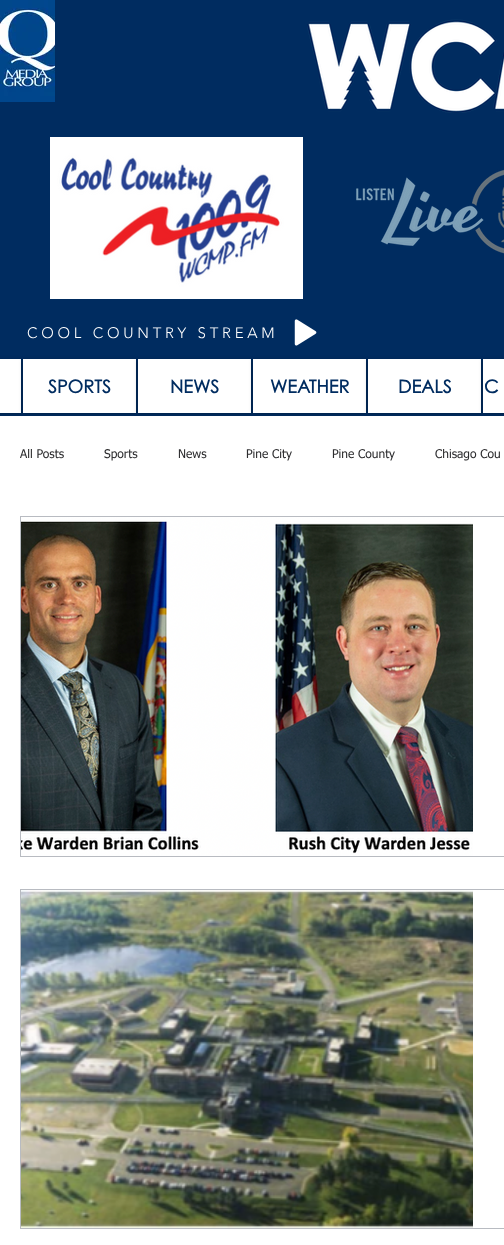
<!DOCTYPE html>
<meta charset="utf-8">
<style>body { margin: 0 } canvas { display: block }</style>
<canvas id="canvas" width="504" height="1245"></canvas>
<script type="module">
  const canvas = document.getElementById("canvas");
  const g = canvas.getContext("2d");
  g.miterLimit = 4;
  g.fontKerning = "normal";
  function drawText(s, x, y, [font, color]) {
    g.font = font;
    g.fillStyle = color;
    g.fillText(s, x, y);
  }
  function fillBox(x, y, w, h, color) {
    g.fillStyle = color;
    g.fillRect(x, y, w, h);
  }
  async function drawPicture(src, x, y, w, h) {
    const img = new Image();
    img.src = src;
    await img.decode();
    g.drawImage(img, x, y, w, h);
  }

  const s1 = ["300 15px 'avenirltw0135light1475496'", "#FFFFFF"];
  const s2 = ["bold 18px Century Gothic", "#002C60"];
  const s3 = ["12px tahoma", "#2D2D2F"];

  fillBox(0, 0, 504, 1245, "#002C60");
  await drawPicture("pic1.png", 0, 0, 55, 102);
  await drawPicture("pic2.png", 307, 19, 197, 94);
  await drawPicture("pic3.png", 50, 137, 253, 162);
  await drawPicture("pic4.png", 356, 169, 148, 85);
  g.letterSpacing = "3.75px";
  drawText("COOL COUNTRY STREAM", 27, 338, s1);
  await drawPicture("pic5.png", 294, 319, 23, 27);
  g.fillStyle = "rgba(0, 0, 0, 0.25)";
  g.filter = "blur(2px)";
  g.beginPath();
  g.rect(-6, 360, 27, 54);
  g.fill();
  g.filter = "none";
  fillBox(0, 359, 21, 54, "#FFFFFF");
  g.fillStyle = "rgba(0, 0, 0, 0.25)";
  g.filter = "blur(2px)";
  g.beginPath();
  g.rect(23, 360, 113, 54);
  g.fill();
  g.filter = "none";
  fillBox(23, 359, 113, 54, "#FFFFFF");
  g.letterSpacing = "0px";
  drawText("SPORTS", 48, 393, s2);
  g.fillStyle = "rgba(0, 0, 0, 0.25)";
  g.filter = "blur(2px)";
  g.beginPath();
  g.rect(138, 360, 113, 54);
  g.fill();
  g.filter = "none";
  fillBox(138, 359, 113, 54, "#FFFFFF");
  drawText("NEWS", 170, 393, s2);
  g.fillStyle = "rgba(0, 0, 0, 0.25)";
  g.filter = "blur(2px)";
  g.beginPath();
  g.rect(253, 360, 113, 54);
  g.fill();
  g.filter = "none";
  fillBox(253, 359, 113, 54, "#FFFFFF");
  drawText("WEATHER", 270, 393, s2);
  g.fillStyle = "rgba(0, 0, 0, 0.25)";
  g.filter = "blur(2px)";
  g.beginPath();
  g.rect(368, 360, 113, 54);
  g.fill();
  g.filter = "none";
  fillBox(368, 359, 113, 54, "#FFFFFF");
  drawText("DEALS", 398, 393, s2);
  g.fillStyle = "rgba(0, 0, 0, 0.25)";
  g.filter = "blur(2px)";
  g.beginPath();
  g.rect(483, 360, 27, 54);
  g.fill();
  g.filter = "none";
  fillBox(483, 359, 21, 54, "#FFFFFF");
  drawText("C", 484, 393, s2);
  fillBox(0, 416, 504, 829, "#FFFFFF");
  drawText("All Posts", 20, 458, s3);
  drawText("Sports", 104, 458, s3);
  drawText("News", 178, 458, s3);
  drawText("Pine City", 246, 458, s3);
  drawText("Pine County", 332, 458, s3);
  drawText("Chisago Cou", 435, 458, s3);
  g.strokeStyle = "#B8BBC1";
  g.strokeRect(20.5, 516.5, 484, 340);
  await drawPicture("pic6.png", 21, 517, 452, 339);
  g.strokeRect(20.5, 889.5, 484, 339);
  await drawPicture("pic7.png", 21, 890, 452, 338);
</script>
